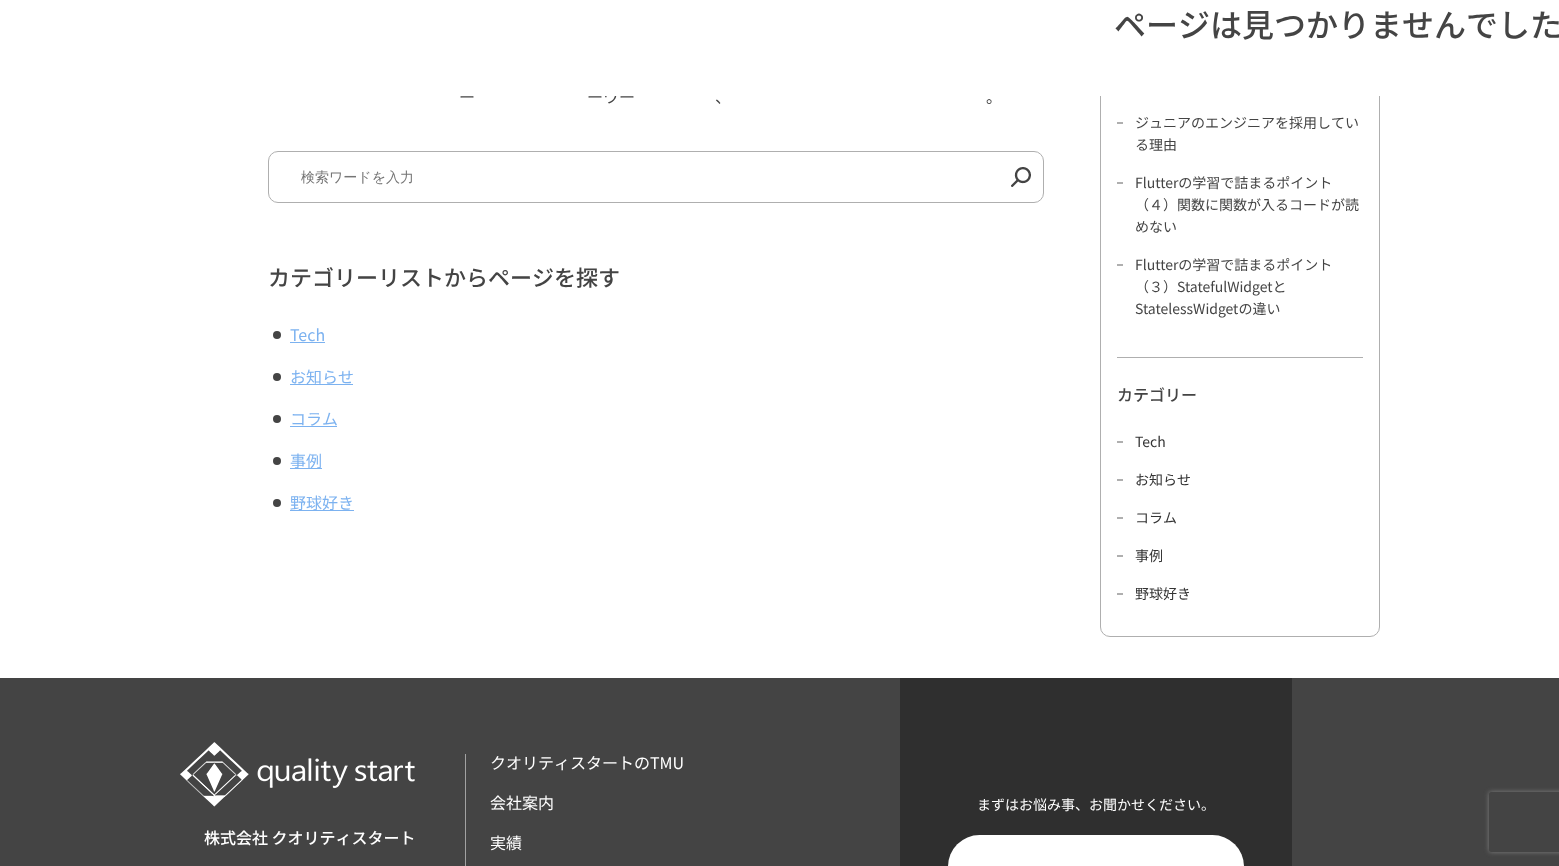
<!DOCTYPE html>
<meta charset="utf-8">
<style>body { margin: 0 } canvas { display: block }</style>
<canvas id="canvas" width="1559" height="866"></canvas>
<script type="module">
  const canvas = document.getElementById("canvas");
  const g = canvas.getContext("2d");
  g.miterLimit = 4;
  g.fontKerning = "normal";
  function drawText(s, x, y, [font, color]) {
    g.font = font;
    g.fillStyle = color;
    g.fillText(s, x, y);
  }
  function fillBox(x, y, w, h, color) {
    g.fillStyle = color;
    g.fillRect(x, y, w, h);
  }
  function fillRounded(x, y, w, h, r, color) {
    g.fillStyle = color;
    g.beginPath();
    g.roundRect(x, y, w, h, r);
    g.fill();
  }
  async function drawPicture(src, x, y, w, h) {
    const img = new Image();
    img.src = src;
    await img.decode();
    g.drawImage(img, x, y, w, h);
  }

  const s1 = ["16px Noto Sans JP", "#444444"];
  const s2 = ["500 32px Noto Sans JP", "#444444"];
  const s3 = ["500 14px WenQuanYi Zen Hei", "#757575"];
  const s4 = ["500 22px Noto Sans JP", "#444444"];
  const s5 = ["16px Noto Sans JP", "#7CB2F0"];
  const s6 = ["14px Noto Sans JP", "#444444"];
  const s7 = ["500 16px Noto Sans JP", "#444444"];
  const s8 = ["14px Noto Sans JP", "#333333"];
  const s9 = ["500 16px Noto Sans JP", "#FFFFFF"];
  const s10 = ["16px Noto Sans JP", "#FFFFFF"];
  const s11 = ["14px Noto Sans JP", "#FFFFFF"];

  fillBox(0, 0, 1559, 866, "#FFFFFF");
  drawText("ーワー", 587, 103, s1);
  g.beginPath();
  g.roundRect(1100.5, -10.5, 279, 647, 9.5);
  g.strokeStyle = "#AFAFAF";
  g.stroke();
  fillBox(604, 0, 776, 96, "#FFFFFF");
  drawText("ページは見つかりませんでした", 1114, 37, s2);
  drawText("ー", 459, 103, s1);
  drawText("、", 715, 103, s1);
  drawText("。", 986, 103, s1);
  g.beginPath();
  g.roundRect(268.5, 151.5, 775, 51, 9.5);
  g.stroke();
  drawText("検索ワードを入力", 301, 182, s3);
  await drawPicture("pic1.png", 1011, 167, 20, 20);
  drawText("カテゴリーリストからページを探す", 268, 286, s4);
  g.beginPath();
  g.arc(277, 335, 4, 0, Math.PI * 2);
  g.fill();
  drawText("Tech", 290, 341, s5);
  fillBox(290, 342, 35, 1, "#7CB2F0");
  g.fillStyle = "#444444";
  g.beginPath();
  g.arc(277, 377, 4, 0, Math.PI * 2);
  g.fill();
  fillBox(290, 384, 63, 1, "#7CB2F0");
  drawText("お知らせ", 290, 383, s5);
  g.fillStyle = "#444444";
  g.beginPath();
  g.arc(277, 419, 4, 0, Math.PI * 2);
  g.fill();
  drawText("コラム", 290, 425, s5);
  fillBox(290, 426, 47, 1, "#7CB2F0");
  g.fillStyle = "#444444";
  g.beginPath();
  g.arc(277, 461, 4, 0, Math.PI * 2);
  g.fill();
  fillBox(290, 468, 32, 1, "#7CB2F0");
  drawText("事例", 290, 467, s5);
  g.fillStyle = "#444444";
  g.beginPath();
  g.arc(277, 503, 4, 0, Math.PI * 2);
  g.fill();
  fillBox(290, 510, 64, 1, "#7CB2F0");
  drawText("野球好き", 290, 509, s5);
  fillBox(1117, 357, 246, 1, "#AFAFAF");
  fillBox(1117, 122, 6, 2, "#AFAFAF");
  drawText("ジュニアのエンジニアを採用してい", 1135, 128, s6);
  drawText("る理由", 1135, 150, s6);
  fillBox(1117, 182, 6, 2, "#AFAFAF");
  drawText("Flutterの学習で詰まるポイント", 1135, 188, s6);
  drawText("（４）関数に関数が入るコードが読", 1135, 210, s6);
  drawText("めない", 1135, 232, s6);
  fillBox(1117, 264, 6, 2, "#AFAFAF");
  drawText("Flutterの学習で詰まるポイント", 1135, 270, s6);
  drawText("（３）StatefulWidgetと", 1135, 292, s6);
  drawText("StatelessWidgetの違い", 1135, 314, s6);
  drawText("カテゴリー", 1117, 401, s7);
  fillBox(1117, 441, 6, 2, "#AFAFAF");
  drawText("Tech", 1135, 447, s8);
  fillBox(1117, 479, 6, 2, "#AFAFAF");
  drawText("お知らせ", 1135, 485, s8);
  fillBox(1117, 517, 6, 2, "#AFAFAF");
  drawText("コラム", 1135, 523, s8);
  fillBox(1117, 555, 6, 2, "#AFAFAF");
  drawText("事例", 1135, 561, s8);
  fillBox(1117, 593, 6, 2, "#AFAFAF");
  drawText("野球好き", 1135, 599, s8);
  fillBox(0, 678, 1559, 188, "#444444");
  await drawPicture("pic2.png", 180, 742, 235, 65);
  drawText("株式会社 クオリティスタート", 204, 844, s9);
  fillBox(465, 754, 1, 112, "#A2A2A2");
  drawText("クオリティスタートのTMU", 490, 769, s10);
  drawText("会社案内", 490, 809, s10);
  drawText("実績", 490, 849, s10);
  fillBox(900, 678, 392, 188, "#2F2F2F");
  drawText("まずはお悩み事、お聞かせください。", 977, 810, s11);
  fillRounded(948, 835, 296, 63, 32, "#FFFFFF");
  g.save();
  g.beginPath();
  g.moveTo(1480, 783);
  g.lineTo(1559, 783);
  g.lineTo(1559, 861);
  g.lineTo(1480, 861);
  g.closePath();
  g.moveTo(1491, 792);
  g.lineTo(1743, 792);
  g.bezierCurveTo(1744, 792, 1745, 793, 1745, 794);
  g.lineTo(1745, 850);
  g.bezierCurveTo(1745, 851, 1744, 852, 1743, 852);
  g.lineTo(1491, 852);
  g.bezierCurveTo(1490, 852, 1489, 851, 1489, 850);
  g.lineTo(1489, 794);
  g.bezierCurveTo(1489, 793, 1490, 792, 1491, 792);
  g.closePath();
  g.clip("evenodd");
  g.fillStyle = "#808080";
  g.filter = "blur(2.5px)";
  g.beginPath();
  g.roundRect(1489, 792, 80, 60, 2);
  g.fill();
  g.filter = "none";
  g.restore();
</script>
